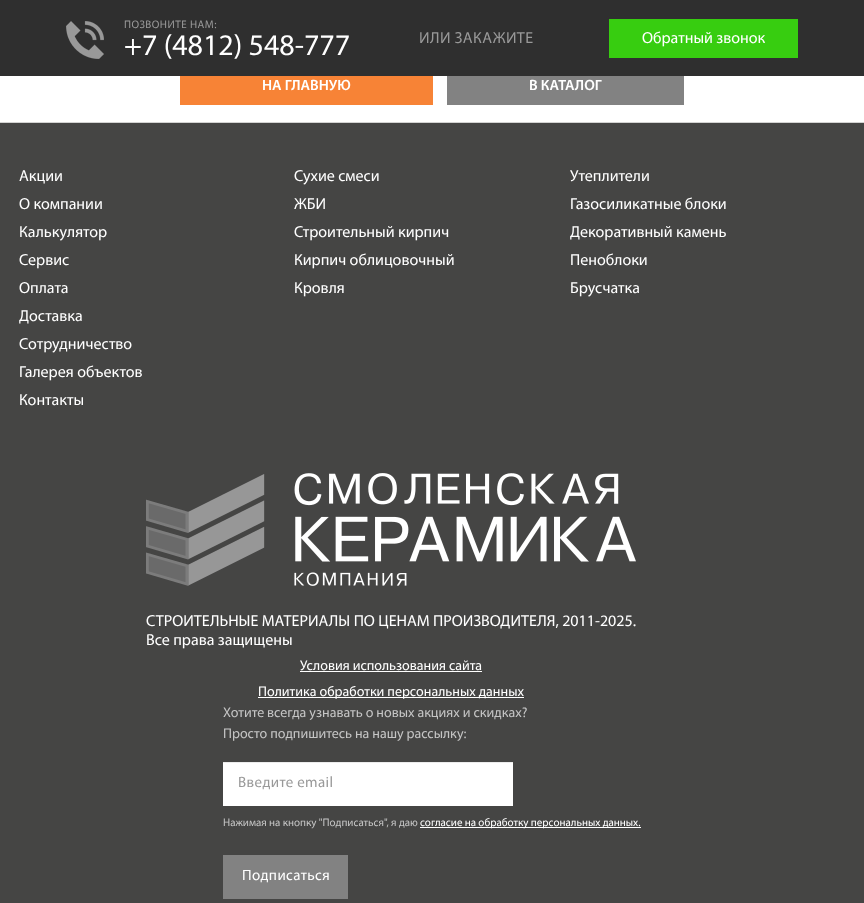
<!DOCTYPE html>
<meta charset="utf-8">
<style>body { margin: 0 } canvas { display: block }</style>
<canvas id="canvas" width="864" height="903"></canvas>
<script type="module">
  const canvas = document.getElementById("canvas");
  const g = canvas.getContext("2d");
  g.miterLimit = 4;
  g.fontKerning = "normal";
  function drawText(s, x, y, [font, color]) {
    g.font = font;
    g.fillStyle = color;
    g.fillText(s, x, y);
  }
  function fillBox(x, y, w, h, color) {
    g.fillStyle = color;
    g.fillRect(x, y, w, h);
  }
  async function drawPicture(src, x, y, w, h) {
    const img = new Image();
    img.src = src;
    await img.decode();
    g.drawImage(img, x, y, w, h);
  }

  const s1 = ["11px Myriad", "#999999"];
  const s2 = ["30px Myriad", "#FFFFFF"];
  const s3 = ["16px Myriad", "#999999"];
  const s4 = ["16px Myriad", "#FFFFFF"];
  const s5 = ["600 15px Myriad", "#FFFFFF"];
  const s6 = ["14px Myriad", "#FFFFFF"];
  const s7 = ["14px Myriad", "#C5C5C5"];
  const s8 = ["15px Myriad", "#999999"];
  const s9 = ["11px Myriad", "#C5C5C5"];
  const s10 = ["11px Myriad", "#FFFFFF"];
  const s11 = ["15px Myriad", "#FFFFFF"];

  fillBox(0, 0, 864, 903, "#FFFFFF");
  fillBox(0, 0, 864, 76, "#2F2F2F");
  await drawPicture("pic1.png", 66, 21, 38, 38);
  g.letterSpacing = "0.5px";
  drawText("ПОЗВОНИТЕ НАМ:", 124, 28, s1);
  g.letterSpacing = "0px";
  drawText("+7 (4812) 548-777", 124, 55, s2);
  g.letterSpacing = "0.4px";
  drawText("ИЛИ ЗАКАЖИТЕ", 419, 43, s3);
  fillBox(609, 19, 189, 39, "#37CD10");
  g.letterSpacing = "0px";
  drawText("Обратный звонок", 642, 43, s4);
  fillBox(180, 76, 253, 29, "#F78336");
  drawText("НА ГЛАВНУЮ", 262, 90, s5);
  fillBox(447, 76, 237, 29, "#828282");
  drawText("В КАТАЛОГ", 529, 90, s5);
  fillBox(0, 123, 864, 780, "#454544");
  fillBox(0, 122, 864, 1, "#D3D3D2");
  drawText("Акции", 19, 181, s4);
  drawText("О компании", 19, 209, s4);
  drawText("Калькулятор", 19, 237, s4);
  drawText("Сервис", 19, 265, s4);
  drawText("Оплата", 19, 293, s4);
  drawText("Доставка", 19, 321, s4);
  drawText("Сотрудничество", 19, 349, s4);
  drawText("Галерея объектов", 19, 377, s4);
  drawText("Контакты", 19, 405, s4);
  drawText("Сухие смеси", 294, 181, s4);
  drawText("ЖБИ", 294, 209, s4);
  drawText("Строительный кирпич", 294, 237, s4);
  drawText("Кирпич облицовочный", 294, 265, s4);
  drawText("Кровля", 294, 293, s4);
  drawText("Утеплители", 570, 181, s4);
  drawText("Газосиликатные блоки", 570, 209, s4);
  drawText("Декоративный камень", 570, 237, s4);
  drawText("Пеноблоки", 570, 265, s4);
  drawText("Брусчатка", 570, 293, s4);
  await drawPicture("pic2.png", 146, 473, 490, 113);
  drawText("СТРОИТЕЛЬНЫЕ МАТЕРИАЛЫ ПО ЦЕНАМ ПРОИЗВОДИТЕЛЯ, 2011-2025.", 146, 626, s4);
  drawText("Все права защищены", 146, 645, s4);
  drawText("Условия использования сайта", 300, 670, s6);
  fillBox(300, 671, 182, 1, "#FFFFFF");
  fillBox(258, 697, 266, 1, "#FFFFFF");
  drawText("Политика обработки персональных данных", 258, 696, s6);
  drawText("Хотите всегда узнавать о новых акциях и скидках?", 223, 717, s7);
  drawText("Просто подпишитесь на нашу рассылку:", 223, 738, s7);
  fillBox(223, 763, 290, 43, "#FFFFFF");
  fillBox(223, 762, 290, 1, "#ECECEC");
  g.letterSpacing = "0.4px";
  drawText("Введите email", 238, 787, s8);
  g.letterSpacing = "0px";
  drawText("Нажимая на кнопку \"Подписаться\", я даю", 223, 826, s9);
  fillBox(420, 827, 221, 1, "#FFFFFF");
  drawText("согласие на обработку персональных данных.", 420, 826, s10);
  fillBox(223, 855, 125, 44, "#828282");
  g.letterSpacing = "0.4px";
  drawText("Подписаться", 242, 880, s11);
</script>
